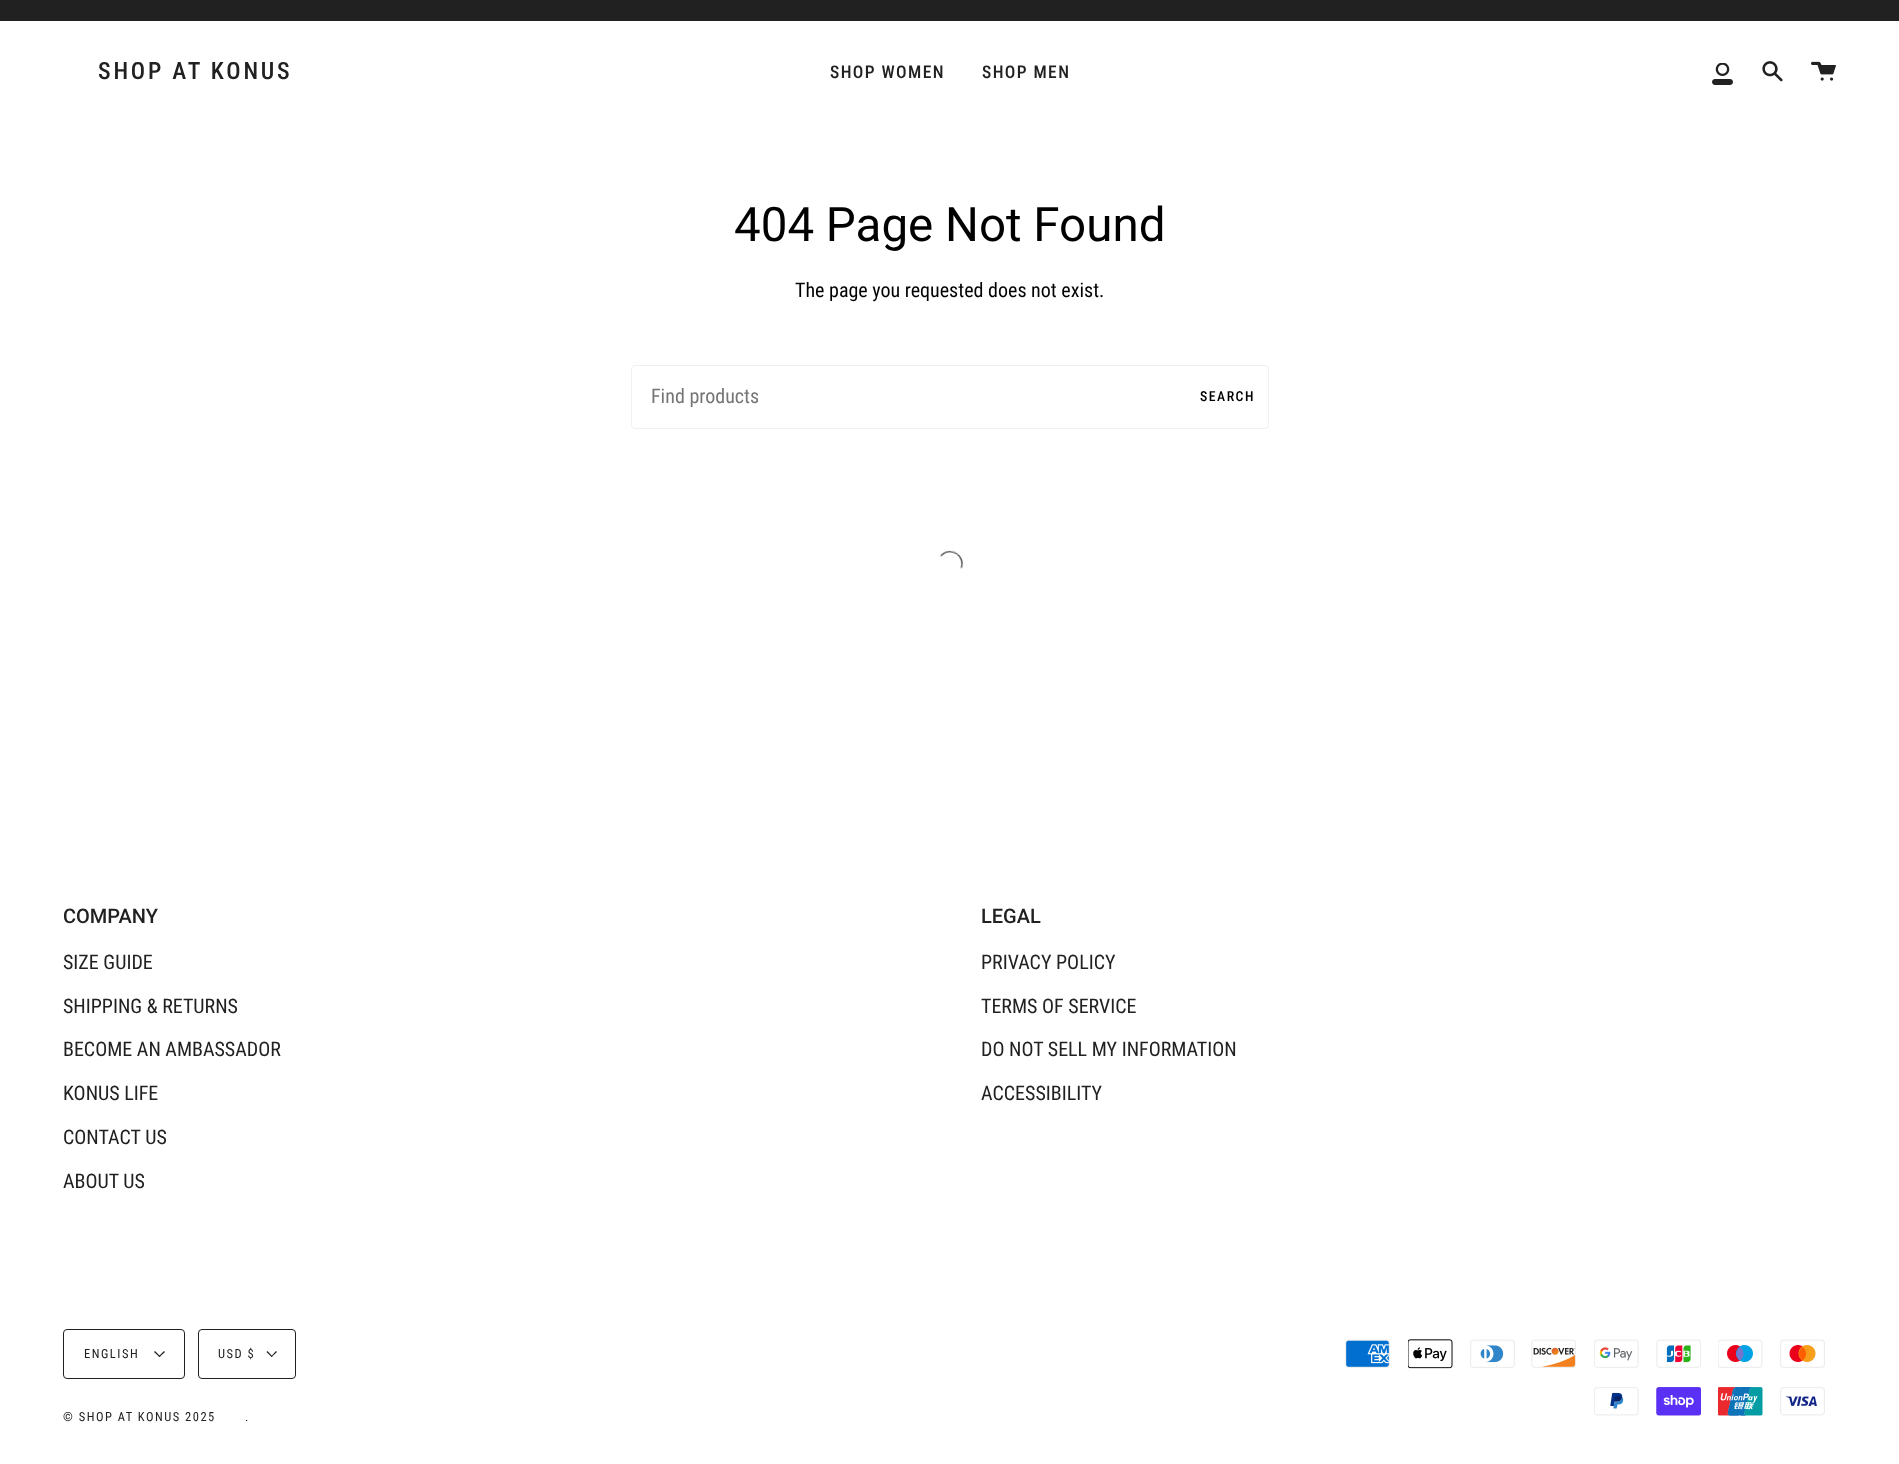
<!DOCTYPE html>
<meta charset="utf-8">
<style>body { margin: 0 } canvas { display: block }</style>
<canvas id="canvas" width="1899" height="1464"></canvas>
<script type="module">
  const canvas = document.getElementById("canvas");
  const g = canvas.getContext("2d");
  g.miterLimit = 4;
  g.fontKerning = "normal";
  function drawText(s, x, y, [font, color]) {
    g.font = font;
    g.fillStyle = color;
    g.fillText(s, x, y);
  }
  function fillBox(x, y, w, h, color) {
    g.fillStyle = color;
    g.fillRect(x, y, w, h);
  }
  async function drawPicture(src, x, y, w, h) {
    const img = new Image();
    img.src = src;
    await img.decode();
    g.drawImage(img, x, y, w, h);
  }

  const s1 = ["500 23.75px Roboto Condensed", "#212121"];
  const s2 = ["500 17.5px Roboto Condensed", "#212121"];
  const s3 = ["47.5px Roboto", "#000000"];
  const s4 = ["20px Roboto Condensed", "#000000"];
  const s5 = ["20px Roboto Condensed", "#757575"];
  const s6 = ["500 13.75px Roboto Condensed", "#000000"];
  const s7 = ["500 20px Roboto", "#212121"];
  const s8 = ["20px Roboto Condensed", "#212121"];
  const s9 = ["12.5px Roboto Condensed", "#212121"];

  fillBox(0, 0, 1899, 1464, "#FFFFFF");
  fillBox(0, 0, 1899, 21, "#212121");
  g.letterSpacing = "2.8px";
  drawText("SHOP AT KONUS", 98, 79, s1);
  g.letterSpacing = "1.4px";
  drawText("SHOP WOMEN", 830, 78, s2);
  drawText("SHOP MEN", 982, 78, s2);
  await drawPicture("pic1.png", 1712, 63, 21, 22);
  await drawPicture("pic2.png", 1762, 61, 21, 21);
  await drawPicture("pic3.png", 1811, 61, 25, 20);
  g.letterSpacing = "0px";
  drawText("404 Page Not Found", 734, 241, s3);
  drawText("The page you requested does not exist.", 795, 297, s4);
  g.beginPath();
  g.roundRect(631.5, 365.5, 637, 63, 3.5);
  g.strokeStyle = "#F0F0F0";
  g.stroke();
  drawText("Find products", 651, 403, s5);
  g.letterSpacing = "1.5px";
  drawText("SEARCH", 1200, 401, s6);
  await drawPicture("pic4.png", 940, 550, 24, 19);
  g.letterSpacing = "0px";
  drawText("COMPANY", 63, 923, s7);
  drawText("SIZE GUIDE", 63, 969, s8);
  drawText("SHIPPING & RETURNS", 63, 1013, s8);
  drawText("BECOME AN AMBASSADOR", 63, 1056, s8);
  drawText("KONUS LIFE", 63, 1100, s8);
  drawText("CONTACT US", 63, 1144, s8);
  drawText("ABOUT US", 63, 1188, s8);
  drawText("LEGAL", 981, 923, s7);
  drawText("PRIVACY POLICY", 981, 969, s8);
  drawText("TERMS OF SERVICE", 981, 1013, s8);
  drawText("DO NOT SELL MY INFORMATION", 981, 1056, s8);
  drawText("ACCESSIBILITY", 981, 1100, s8);
  g.beginPath();
  g.roundRect(63.5, 1329.5, 121, 49, 3.5);
  g.strokeStyle = "#212121";
  g.stroke();
  g.letterSpacing = "1.5px";
  drawText("ENGLISH", 84, 1358, s9);
  g.beginPath();
  g.moveTo(158.5, 1356.5);
  g.lineTo(164, 1351);
  g.lineTo(165, 1352);
  g.lineTo(159.5, 1357);
  g.closePath();
  g.fill();
  g.beginPath();
  g.moveTo(154, 1352);
  g.lineTo(155, 1351);
  g.lineTo(160.5, 1356.5);
  g.lineTo(159.5, 1357);
  g.closePath();
  g.fill();
  g.beginPath();
  g.roundRect(198.5, 1329.5, 97, 49, 3.5);
  g.stroke();
  drawText("USD $", 218, 1358, s9);
  g.beginPath();
  g.moveTo(271, 1356.5);
  g.lineTo(276, 1351);
  g.lineTo(277, 1352);
  g.lineTo(271.5, 1357);
  g.closePath();
  g.fill();
  g.beginPath();
  g.moveTo(266.5, 1352);
  g.lineTo(267.5, 1351);
  g.lineTo(272.5, 1356.5);
  g.lineTo(271.5, 1357);
  g.closePath();
  g.fill();
  drawText("© SHOP AT KONUS 2025", 63, 1421, s9);
  drawText(".", 245, 1421, s9);
  await drawPicture("pic5.png", 1345, 1339, 45, 29);
  await drawPicture("pic6.png", 1408, 1339, 45, 30);
  await drawPicture("pic7.png", 1470, 1339, 45, 29);
  await drawPicture("pic8.png", 1531, 1339, 45, 29);
  await drawPicture("pic9.png", 1594, 1339, 45, 29);
  await drawPicture("pic10.png", 1656, 1339, 45, 29);
  await drawPicture("pic11.png", 1718, 1339, 45, 29);
  await drawPicture("pic12.png", 1780, 1339, 45, 29);
  await drawPicture("pic13.png", 1594, 1387, 45, 29);
  await drawPicture("pic14.png", 1656, 1387, 45, 29);
  await drawPicture("pic15.png", 1718, 1387, 45, 29);
  await drawPicture("pic16.png", 1780, 1387, 45, 29);
</script>
